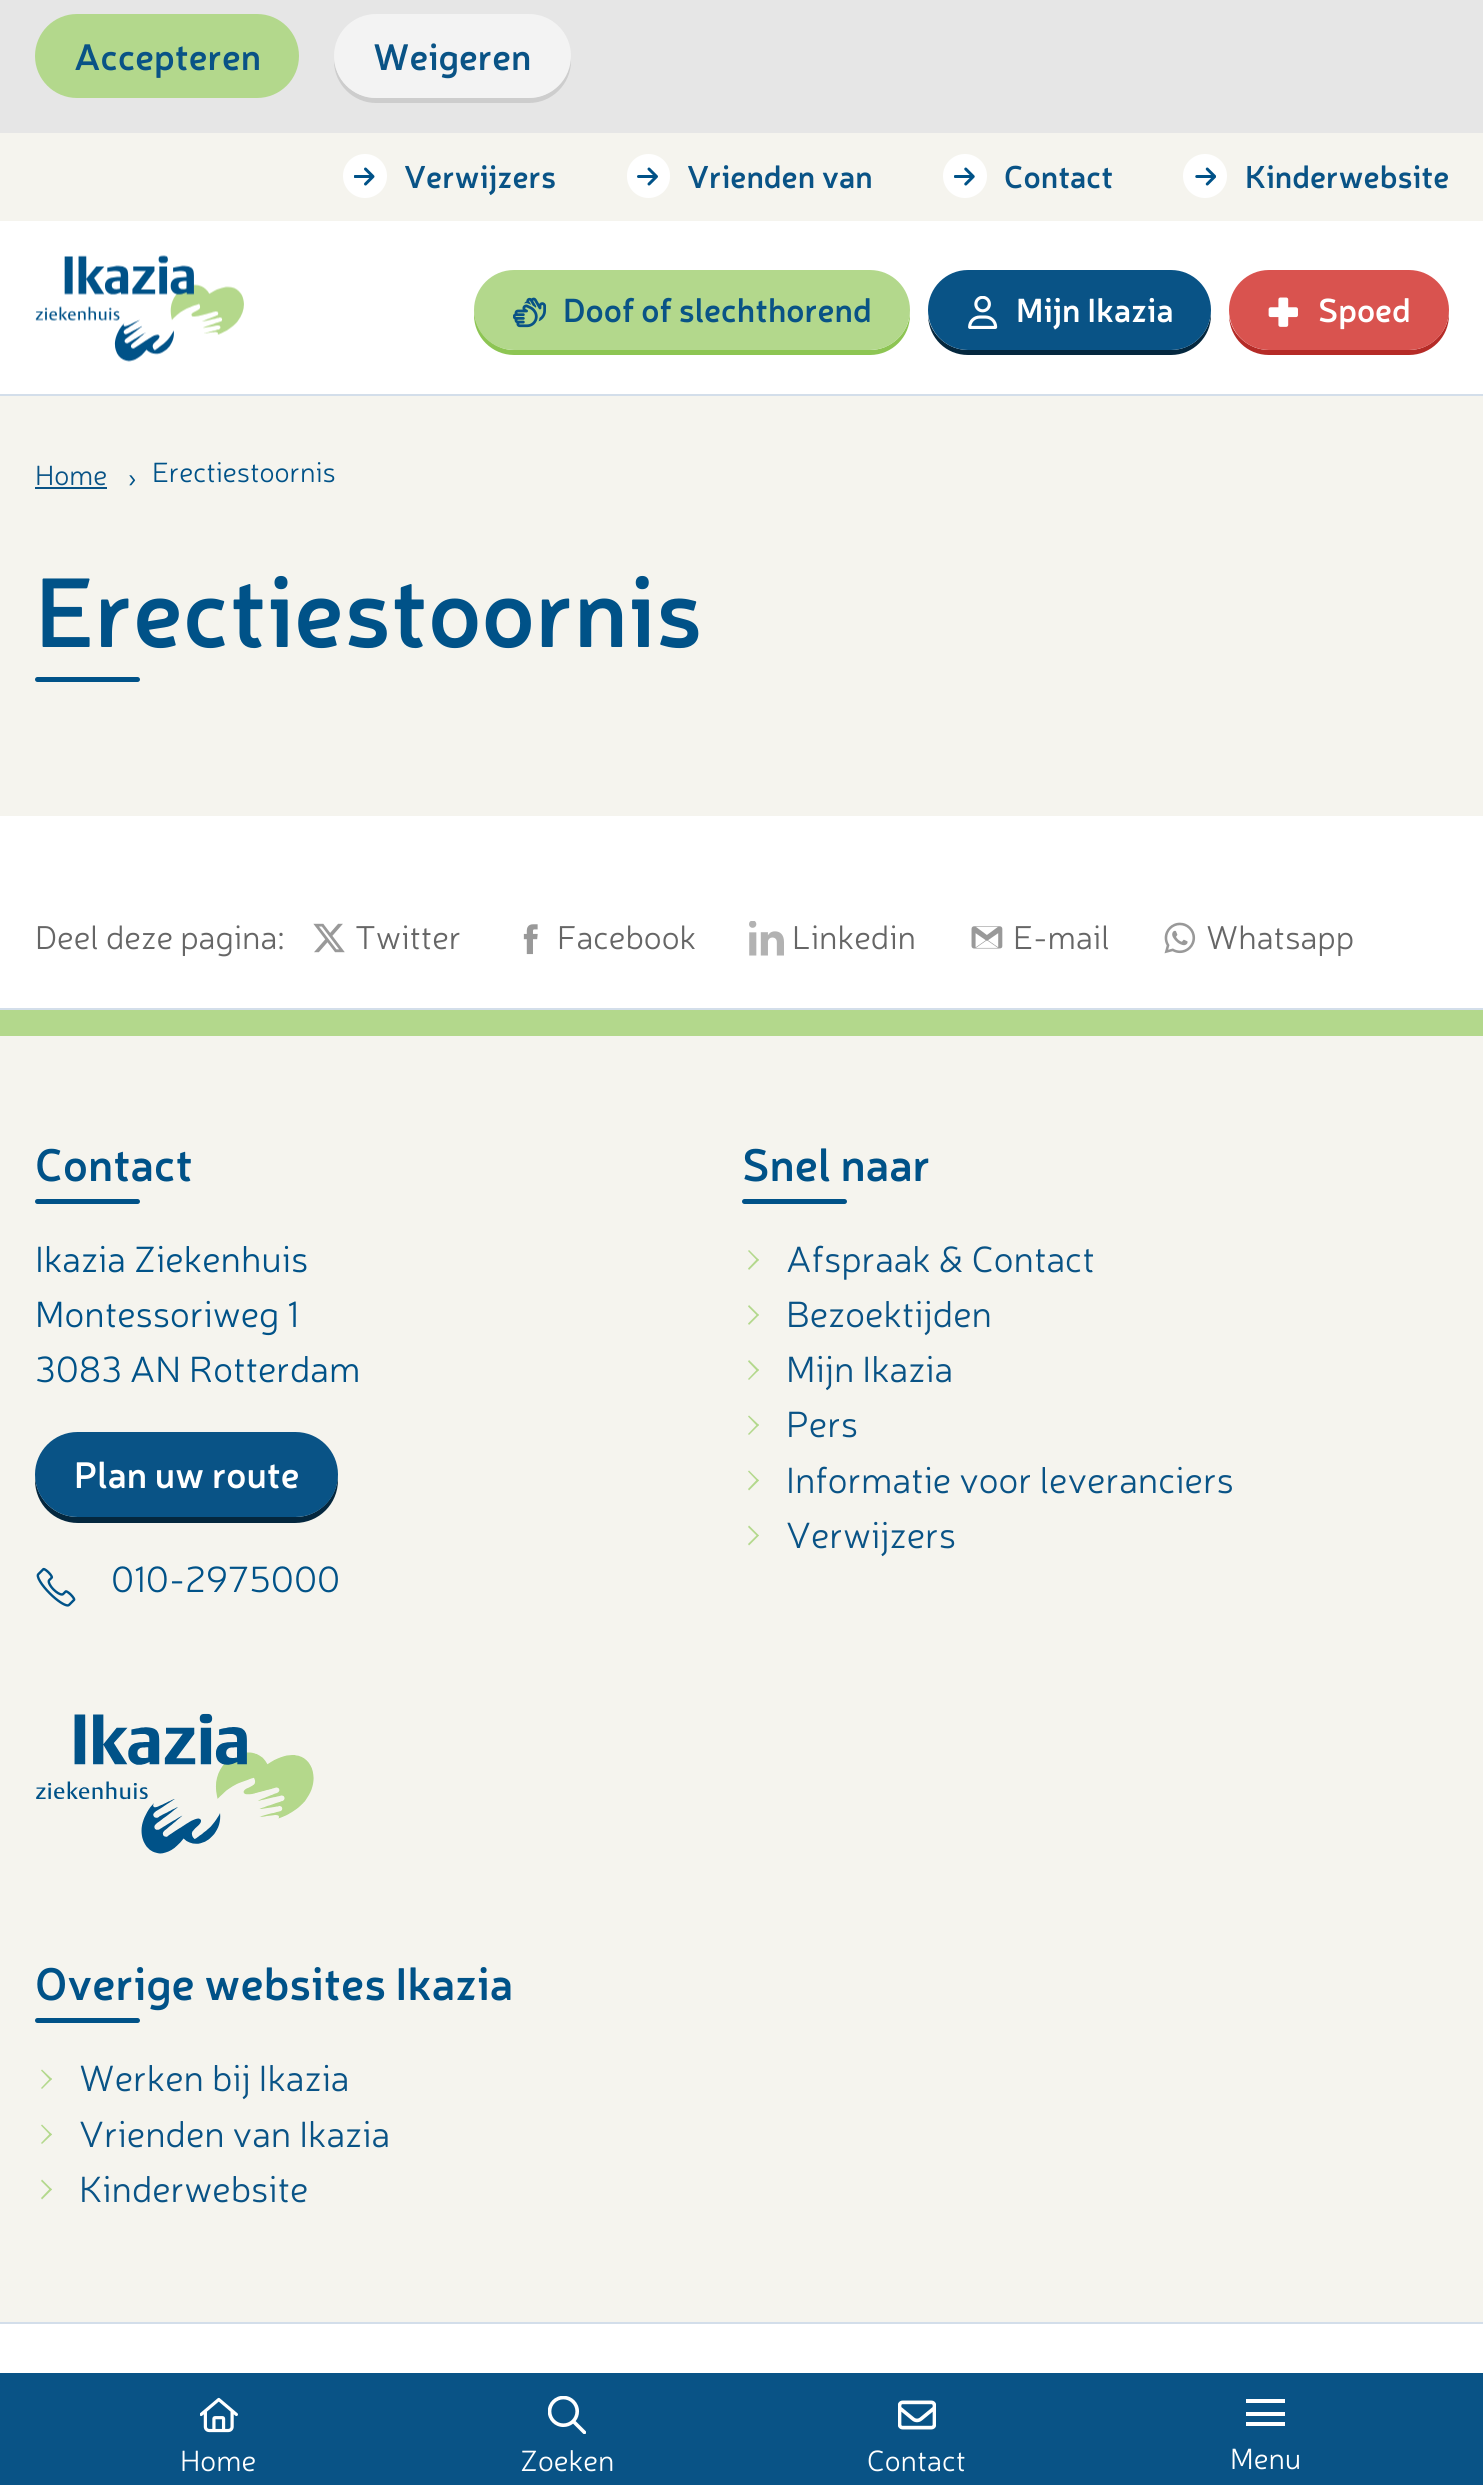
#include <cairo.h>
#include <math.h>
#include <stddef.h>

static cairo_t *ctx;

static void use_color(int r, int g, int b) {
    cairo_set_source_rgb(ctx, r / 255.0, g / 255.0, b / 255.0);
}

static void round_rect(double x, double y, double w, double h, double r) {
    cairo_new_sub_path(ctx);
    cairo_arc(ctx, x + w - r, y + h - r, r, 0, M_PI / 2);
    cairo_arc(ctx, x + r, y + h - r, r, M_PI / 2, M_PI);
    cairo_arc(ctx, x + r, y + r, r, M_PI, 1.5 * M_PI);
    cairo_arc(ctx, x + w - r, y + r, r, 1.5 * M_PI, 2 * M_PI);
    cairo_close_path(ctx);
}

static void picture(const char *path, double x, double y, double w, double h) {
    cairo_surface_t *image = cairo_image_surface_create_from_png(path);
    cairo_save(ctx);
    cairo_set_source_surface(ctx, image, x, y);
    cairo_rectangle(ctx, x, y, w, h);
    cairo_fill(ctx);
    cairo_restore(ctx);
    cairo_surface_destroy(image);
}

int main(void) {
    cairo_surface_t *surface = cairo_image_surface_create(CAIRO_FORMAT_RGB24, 1483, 2485);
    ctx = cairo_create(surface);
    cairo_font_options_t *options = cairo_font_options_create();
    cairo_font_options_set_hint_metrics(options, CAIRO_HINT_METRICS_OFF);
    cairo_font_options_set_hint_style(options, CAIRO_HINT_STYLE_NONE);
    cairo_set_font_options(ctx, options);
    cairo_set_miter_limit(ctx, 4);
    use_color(255, 255, 255);
    cairo_paint(ctx);
    use_color(230, 230, 230);
    cairo_rectangle(ctx, 0, 0, 1483, 133);
    cairo_fill(ctx);
    use_color(179, 216, 140);
    round_rect(37, 16, 260, 80, 40);
    cairo_fill_preserve(ctx);
    cairo_set_line_width(ctx, 4);
    cairo_stroke(ctx);
    cairo_select_font_face(ctx, "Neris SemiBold", CAIRO_FONT_SLANT_NORMAL, CAIRO_FONT_WEIGHT_NORMAL);
    cairo_set_font_size(ctx, 36.75);
    use_color(9, 83, 134);
    cairo_move_to(ctx, 74, 70);
    cairo_show_text(ctx, "Accepteren");
    use_color(205, 205, 205);
    cairo_new_path(ctx);
    cairo_move_to(ctx, 334, 56);
    cairo_line_to(ctx, 334, 61);
    cairo_curve_to(ctx, 334, 84, 353, 103, 376, 103);
    cairo_line_to(ctx, 529, 103);
    cairo_curve_to(ctx, 552, 103, 571, 84, 571, 61);
    cairo_line_to(ctx, 570, 54);
    cairo_line_to(ctx, 570, 56);
    cairo_curve_to(ctx, 570, 79, 552, 98, 528, 98);
    cairo_line_to(ctx, 376, 98);
    cairo_curve_to(ctx, 353, 98, 334, 79, 334, 56);
    cairo_close_path(ctx);
    cairo_fill(ctx);
    use_color(243, 243, 243);
    round_rect(336, 16, 233, 80, 40);
    cairo_fill_preserve(ctx);
    cairo_stroke(ctx);
    use_color(9, 83, 134);
    cairo_move_to(ctx, 373, 70);
    cairo_show_text(ctx, "Weigeren");
    use_color(211, 222, 234);
    cairo_rectangle(ctx, 0, 394, 1483, 2);
    cairo_fill(ctx);
    use_color(245, 244, 238);
    cairo_rectangle(ctx, 0, 133, 1483, 88);
    cairo_fill(ctx);
    use_color(255, 255, 255);
    cairo_arc(ctx, 365, 176, 22, 0, 2 * M_PI);
    cairo_fill(ctx);
    picture("img1.png", 354, 167, 21, 19);
    cairo_set_font_size(ctx, 31.5);
    use_color(9, 83, 134);
    cairo_move_to(ctx, 404, 188);
    cairo_show_text(ctx, "Verwijzers");
    use_color(255, 255, 255);
    round_rect(627, 154, 43, 44, 21.5);
    cairo_fill(ctx);
    picture("img2.png", 637, 167, 21, 19);
    use_color(9, 83, 134);
    cairo_move_to(ctx, 687, 188);
    cairo_show_text(ctx, "Vrienden van");
    use_color(255, 255, 255);
    cairo_new_path(ctx);
    cairo_arc(ctx, 965, 176, 22, 0, 2 * M_PI);
    cairo_fill(ctx);
    picture("img3.png", 954, 167, 21, 19);
    use_color(9, 83, 134);
    cairo_move_to(ctx, 1004, 188);
    cairo_show_text(ctx, "Contact");
    use_color(255, 255, 255);
    cairo_new_path(ctx);
    cairo_arc(ctx, 1205, 176, 22, 0, 2 * M_PI);
    cairo_fill(ctx);
    picture("img4.png", 1195, 167, 21, 19);
    use_color(9, 83, 134);
    cairo_move_to(ctx, 1245, 188);
    cairo_show_text(ctx, "Kinderwebsite");
    picture("img5.png", 35, 255, 209, 107);
    use_color(141, 197, 83);
    cairo_new_path(ctx);
    cairo_move_to(ctx, 474, 310);
    cairo_line_to(ctx, 474, 315);
    cairo_curve_to(ctx, 474, 337, 492, 355, 514, 355);
    cairo_line_to(ctx, 870, 355);
    cairo_curve_to(ctx, 892, 355, 910, 337, 910, 315);
    cairo_line_to(ctx, 910, 312);
    cairo_curve_to(ctx, 909, 333, 891, 350, 870, 350);
    cairo_line_to(ctx, 514, 350);
    cairo_curve_to(ctx, 493, 350, 475, 332, 474, 310);
    cairo_close_path(ctx);
    cairo_fill(ctx);
    use_color(179, 216, 140);
    round_rect(476, 272, 432, 76, 38);
    cairo_fill_preserve(ctx);
    cairo_stroke(ctx);
    picture("img6.png", 513, 297, 33, 31);
    cairo_set_font_size(ctx, 33.25);
    use_color(9, 83, 134);
    cairo_move_to(ctx, 563, 322);
    cairo_show_text(ctx, "Doof of slechthorend");
    use_color(4, 39, 62);
    cairo_new_path(ctx);
    cairo_move_to(ctx, 928, 316);
    cairo_curve_to(ctx, 929, 338, 946, 355, 968, 355);
    cairo_line_to(ctx, 1171, 355);
    cairo_curve_to(ctx, 1193, 355, 1211, 337, 1211, 315);
    cairo_line_to(ctx, 1211, 312);
    cairo_curve_to(ctx, 1210, 333, 1192, 350, 1171, 350);
    cairo_line_to(ctx, 968, 350);
    cairo_curve_to(ctx, 948, 350, 931, 335, 928, 316);
    cairo_close_path(ctx);
    cairo_fill(ctx);
    use_color(9, 83, 134);
    round_rect(930, 272, 279, 76, 38);
    cairo_fill_preserve(ctx);
    cairo_stroke(ctx);
    picture("img7.png", 968, 296, 30, 33);
    use_color(255, 255, 255);
    cairo_move_to(ctx, 1016, 322);
    cairo_show_text(ctx, "Mijn Ikazia");
    use_color(181, 43, 39);
    cairo_new_path(ctx);
    cairo_move_to(ctx, 1229, 316);
    cairo_curve_to(ctx, 1230, 338, 1247, 355, 1269, 355);
    cairo_line_to(ctx, 1409, 355);
    cairo_curve_to(ctx, 1431, 355, 1449, 337, 1449, 315);
    cairo_line_to(ctx, 1449, 312);
    cairo_curve_to(ctx, 1448, 333, 1430, 350, 1409, 350);
    cairo_line_to(ctx, 1269, 350);
    cairo_curve_to(ctx, 1249, 350, 1232, 335, 1229, 316);
    cairo_close_path(ctx);
    cairo_fill(ctx);
    use_color(217, 83, 79);
    round_rect(1231, 272, 216, 76, 38);
    cairo_fill_preserve(ctx);
    cairo_stroke(ctx);
    picture("img8.png", 1268, 297, 30, 30);
    use_color(255, 255, 255);
    cairo_move_to(ctx, 1318, 322);
    cairo_show_text(ctx, "Spoed");
    use_color(245, 244, 238);
    cairo_rectangle(ctx, 0, 396, 1483, 420);
    cairo_fill(ctx);
    cairo_select_font_face(ctx, "Neris Light", CAIRO_FONT_SLANT_NORMAL, CAIRO_FONT_WEIGHT_NORMAL);
    cairo_set_font_size(ctx, 28);
    use_color(9, 83, 134);
    cairo_move_to(ctx, 35, 485);
    cairo_show_text(ctx, "Home");
    cairo_rectangle(ctx, 35, 487, 72, 2);
    cairo_fill(ctx);
    use_color(0, 82, 136);
    cairo_move_to(ctx, 127, 487);
    cairo_show_text(ctx, "›");
    cairo_move_to(ctx, 152, 482);
    cairo_show_text(ctx, "Erectiestoornis");
    cairo_select_font_face(ctx, "Neris SemiBold", CAIRO_FONT_SLANT_NORMAL, CAIRO_FONT_WEIGHT_NORMAL);
    cairo_set_font_size(ctx, 98);
    cairo_move_to(ctx, 35, 647);
    cairo_show_text(ctx, "Erectiestoornis");
    round_rect(35, 677, 105, 5, 2.5);
    cairo_fill(ctx);
    cairo_select_font_face(ctx, "Neris Light", CAIRO_FONT_SLANT_NORMAL, CAIRO_FONT_WEIGHT_NORMAL);
    cairo_set_font_size(ctx, 33.25);
    use_color(102, 102, 102);
    cairo_move_to(ctx, 35, 949);
    cairo_show_text(ctx, "Deel deze pagina:");
    picture("img9.png", 313, 923, 32, 30);
    cairo_move_to(ctx, 355, 949);
    cairo_show_text(ctx, "Twitter");
    picture("img10.png", 523, 924, 15, 31);
    cairo_move_to(ctx, 557, 949);
    cairo_show_text(ctx, "Facebook");
    picture("img11.png", 749, 921, 35, 35);
    cairo_move_to(ctx, 792, 949);
    cairo_show_text(ctx, "Linkedin");
    picture("img12.png", 971, 926, 32, 23);
    cairo_move_to(ctx, 1013, 949);
    cairo_show_text(ctx, "E-mail");
    picture("img13.png", 1164, 922, 32, 32);
    cairo_move_to(ctx, 1206, 949);
    cairo_show_text(ctx, "Whatsapp");
    use_color(211, 222, 234);
    cairo_rectangle(ctx, 0, 1008, 1483, 2);
    cairo_fill(ctx);
    use_color(245, 244, 238);
    cairo_rectangle(ctx, 0, 1036, 1483, 1286);
    cairo_fill(ctx);
    use_color(179, 216, 140);
    cairo_rectangle(ctx, 0, 1010, 1483, 26);
    cairo_fill(ctx);
    cairo_select_font_face(ctx, "Neris SemiBold", CAIRO_FONT_SLANT_NORMAL, CAIRO_FONT_WEIGHT_NORMAL);
    cairo_set_font_size(ctx, 45.5);
    use_color(0, 82, 136);
    cairo_move_to(ctx, 35, 1181);
    cairo_show_text(ctx, "Contact");
    round_rect(35, 1199, 105, 5, 2.5);
    cairo_fill(ctx);
    cairo_select_font_face(ctx, "Neris Light", CAIRO_FONT_SLANT_NORMAL, CAIRO_FONT_WEIGHT_NORMAL);
    cairo_set_font_size(ctx, 36.75);
    cairo_move_to(ctx, 35, 1272);
    cairo_show_text(ctx, "Ikazia Ziekenhuis");
    cairo_move_to(ctx, 35, 1327);
    cairo_show_text(ctx, "Montessoriweg 1");
    cairo_move_to(ctx, 35, 1382);
    cairo_show_text(ctx, "3083 AN Rotterdam");
    use_color(4, 39, 62);
    cairo_new_path(ctx);
    cairo_move_to(ctx, 35, 1477);
    cairo_line_to(ctx, 35, 1480);
    cairo_curve_to(ctx, 35, 1504, 54, 1523, 78, 1523);
    cairo_line_to(ctx, 295, 1523);
    cairo_curve_to(ctx, 319, 1523, 338, 1504, 338, 1480);
    cairo_line_to(ctx, 338, 1475);
    cairo_curve_to(ctx, 337, 1499, 318, 1517, 295, 1517);
    cairo_line_to(ctx, 78, 1517);
    cairo_curve_to(ctx, 55, 1517, 37, 1500, 35, 1477);
    cairo_close_path(ctx);
    cairo_fill(ctx);
    use_color(9, 83, 134);
    round_rect(37, 1434, 299, 81, 40.5);
    cairo_fill_preserve(ctx);
    cairo_stroke(ctx);
    cairo_select_font_face(ctx, "Neris SemiBold", CAIRO_FONT_SLANT_NORMAL, CAIRO_FONT_WEIGHT_NORMAL);
    use_color(255, 255, 255);
    cairo_move_to(ctx, 74, 1488);
    cairo_show_text(ctx, "Plan uw route");
    picture("img14.png", 36, 1567, 40, 40);
    cairo_select_font_face(ctx, "Neris Light", CAIRO_FONT_SLANT_NORMAL, CAIRO_FONT_WEIGHT_NORMAL);
    use_color(0, 82, 136);
    cairo_move_to(ctx, 111, 1592);
    cairo_show_text(ctx, "010-2975000");
    picture("img15.png", 36, 1713, 278, 141);
    cairo_select_font_face(ctx, "Neris SemiBold", CAIRO_FONT_SLANT_NORMAL, CAIRO_FONT_WEIGHT_NORMAL);
    cairo_set_font_size(ctx, 45.5);
    cairo_move_to(ctx, 742, 1181);
    cairo_show_text(ctx, "Snel naar");
    round_rect(742, 1199, 105, 5, 2.5);
    cairo_fill(ctx);
    use_color(179, 216, 140);
    cairo_new_path(ctx);
    cairo_move_to(ctx, 748, 1251);
    cairo_line_to(ctx, 749, 1250);
    cairo_line_to(ctx, 759, 1260);
    cairo_line_to(ctx, 757.5, 1261);
    cairo_close_path(ctx);
    cairo_fill(ctx);
    cairo_new_path(ctx);
    cairo_move_to(ctx, 748, 1268.5);
    cairo_line_to(ctx, 757.5, 1258.5);
    cairo_line_to(ctx, 759, 1260);
    cairo_line_to(ctx, 749, 1270);
    cairo_close_path(ctx);
    cairo_fill(ctx);
    cairo_select_font_face(ctx, "Neris Light", CAIRO_FONT_SLANT_NORMAL, CAIRO_FONT_WEIGHT_NORMAL);
    cairo_set_font_size(ctx, 36.75);
    use_color(9, 83, 134);
    cairo_move_to(ctx, 786, 1272);
    cairo_show_text(ctx, "Afspraak & Contact");
    use_color(179, 216, 140);
    cairo_new_path(ctx);
    cairo_move_to(ctx, 748, 1306.5);
    cairo_line_to(ctx, 749, 1305);
    cairo_line_to(ctx, 759, 1315);
    cairo_line_to(ctx, 757.5, 1316);
    cairo_close_path(ctx);
    cairo_fill(ctx);
    cairo_new_path(ctx);
    cairo_move_to(ctx, 748, 1323.5);
    cairo_line_to(ctx, 757.5, 1314);
    cairo_line_to(ctx, 759, 1315);
    cairo_line_to(ctx, 749, 1325);
    cairo_close_path(ctx);
    cairo_fill(ctx);
    use_color(9, 83, 134);
    cairo_move_to(ctx, 786, 1327);
    cairo_show_text(ctx, "Bezoektijden");
    use_color(179, 216, 140);
    cairo_new_path(ctx);
    cairo_move_to(ctx, 748, 1361.5);
    cairo_line_to(ctx, 749, 1360);
    cairo_line_to(ctx, 759, 1370);
    cairo_line_to(ctx, 757.5, 1371.5);
    cairo_close_path(ctx);
    cairo_fill(ctx);
    cairo_new_path(ctx);
    cairo_move_to(ctx, 748, 1379);
    cairo_line_to(ctx, 757.5, 1369);
    cairo_line_to(ctx, 759, 1370);
    cairo_line_to(ctx, 749, 1380);
    cairo_close_path(ctx);
    cairo_fill(ctx);
    use_color(9, 83, 134);
    cairo_move_to(ctx, 786, 1382);
    cairo_show_text(ctx, "Mijn Ikazia");
    use_color(179, 216, 140);
    cairo_new_path(ctx);
    cairo_move_to(ctx, 748, 1416.5);
    cairo_line_to(ctx, 749, 1415.5);
    cairo_line_to(ctx, 759, 1425);
    cairo_line_to(ctx, 757.5, 1426.5);
    cairo_close_path(ctx);
    cairo_fill(ctx);
    cairo_new_path(ctx);
    cairo_move_to(ctx, 748, 1434);
    cairo_line_to(ctx, 757.5, 1424);
    cairo_line_to(ctx, 759, 1425);
    cairo_line_to(ctx, 749, 1435);
    cairo_close_path(ctx);
    cairo_fill(ctx);
    use_color(9, 83, 134);
    cairo_move_to(ctx, 786, 1437);
    cairo_show_text(ctx, "Pers");
    use_color(179, 216, 140);
    cairo_new_path(ctx);
    cairo_move_to(ctx, 748, 1471.5);
    cairo_line_to(ctx, 749, 1470.5);
    cairo_line_to(ctx, 759, 1480.5);
    cairo_line_to(ctx, 757.5, 1481.5);
    cairo_close_path(ctx);
    cairo_fill(ctx);
    cairo_new_path(ctx);
    cairo_move_to(ctx, 748, 1489);
    cairo_line_to(ctx, 757.5, 1479);
    cairo_line_to(ctx, 759, 1480.5);
    cairo_line_to(ctx, 749, 1490.5);
    cairo_close_path(ctx);
    cairo_fill(ctx);
    use_color(9, 83, 134);
    cairo_move_to(ctx, 786, 1493);
    cairo_show_text(ctx, "Informatie voor leveranciers");
    use_color(179, 216, 140);
    cairo_new_path(ctx);
    cairo_move_to(ctx, 748, 1527);
    cairo_line_to(ctx, 749, 1525.5);
    cairo_line_to(ctx, 759, 1535.5);
    cairo_line_to(ctx, 757.5, 1536.5);
    cairo_close_path(ctx);
    cairo_fill(ctx);
    cairo_new_path(ctx);
    cairo_move_to(ctx, 748, 1544);
    cairo_line_to(ctx, 757.5, 1534.5);
    cairo_line_to(ctx, 759, 1535.5);
    cairo_line_to(ctx, 749, 1545.5);
    cairo_close_path(ctx);
    cairo_fill(ctx);
    use_color(9, 83, 134);
    cairo_move_to(ctx, 786, 1548);
    cairo_show_text(ctx, "Verwijzers");
    cairo_select_font_face(ctx, "Neris SemiBold", CAIRO_FONT_SLANT_NORMAL, CAIRO_FONT_WEIGHT_NORMAL);
    cairo_set_font_size(ctx, 45.5);
    use_color(0, 82, 136);
    cairo_move_to(ctx, 35, 2000);
    cairo_show_text(ctx, "Overige websites Ikazia");
    round_rect(35, 2018, 105, 5, 2.5);
    cairo_fill(ctx);
    use_color(179, 216, 140);
    cairo_new_path(ctx);
    cairo_move_to(ctx, 41, 2070.5);
    cairo_line_to(ctx, 42, 2069.5);
    cairo_line_to(ctx, 52, 2079);
    cairo_line_to(ctx, 50.5, 2080.5);
    cairo_close_path(ctx);
    cairo_fill(ctx);
    cairo_new_path(ctx);
    cairo_move_to(ctx, 41, 2088);
    cairo_line_to(ctx, 50.5, 2078);
    cairo_line_to(ctx, 52, 2079);
    cairo_line_to(ctx, 42, 2089);
    cairo_close_path(ctx);
    cairo_fill(ctx);
    cairo_select_font_face(ctx, "Neris Light", CAIRO_FONT_SLANT_NORMAL, CAIRO_FONT_WEIGHT_NORMAL);
    cairo_set_font_size(ctx, 36.75);
    use_color(9, 83, 134);
    cairo_move_to(ctx, 79, 2091);
    cairo_show_text(ctx, "Werken bij Ikazia");
    use_color(179, 216, 140);
    cairo_new_path(ctx);
    cairo_move_to(ctx, 41, 2125.5);
    cairo_line_to(ctx, 42, 2124.5);
    cairo_line_to(ctx, 52, 2134.5);
    cairo_line_to(ctx, 50.5, 2135.5);
    cairo_close_path(ctx);
    cairo_fill(ctx);
    cairo_new_path(ctx);
    cairo_move_to(ctx, 41, 2143);
    cairo_line_to(ctx, 50.5, 2133);
    cairo_line_to(ctx, 52, 2134.5);
    cairo_line_to(ctx, 42, 2144);
    cairo_close_path(ctx);
    cairo_fill(ctx);
    use_color(9, 83, 134);
    cairo_move_to(ctx, 79, 2147);
    cairo_show_text(ctx, "Vrienden van Ikazia");
    use_color(179, 216, 140);
    cairo_new_path(ctx);
    cairo_move_to(ctx, 41, 2181);
    cairo_line_to(ctx, 42, 2179.5);
    cairo_line_to(ctx, 52, 2189.5);
    cairo_line_to(ctx, 50.5, 2190.5);
    cairo_close_path(ctx);
    cairo_fill(ctx);
    cairo_new_path(ctx);
    cairo_move_to(ctx, 41, 2198);
    cairo_line_to(ctx, 50.5, 2188);
    cairo_line_to(ctx, 52, 2189.5);
    cairo_line_to(ctx, 42, 2199.5);
    cairo_close_path(ctx);
    cairo_fill(ctx);
    use_color(9, 83, 134);
    cairo_move_to(ctx, 79, 2202);
    cairo_show_text(ctx, "Kinderwebsite");
    use_color(211, 222, 234);
    cairo_rectangle(ctx, 0, 2322, 1483, 2);
    cairo_fill(ctx);
    use_color(9, 83, 134);
    cairo_rectangle(ctx, 0, 2373, 1483, 112);
    cairo_fill(ctx);
    picture("img16.png", 200, 2397, 38, 36);
    cairo_set_font_size(ctx, 29.5);
    use_color(255, 255, 255);
    cairo_move_to(ctx, 180, 2471);
    cairo_show_text(ctx, "Home");
    picture("img17.png", 548, 2396, 38, 38);
    cairo_move_to(ctx, 520, 2471);
    cairo_show_text(ctx, "Zoeken");
    picture("img18.png", 898, 2400, 38, 30);
    cairo_move_to(ctx, 867, 2471);
    cairo_show_text(ctx, "Contact");
    cairo_rectangle(ctx, 1246, 2399, 39, 4);
    cairo_fill(ctx);
    cairo_rectangle(ctx, 1246, 2412, 39, 4);
    cairo_fill(ctx);
    cairo_rectangle(ctx, 1246, 2422, 39, 4);
    cairo_fill(ctx);
    cairo_move_to(ctx, 1230, 2469);
    cairo_show_text(ctx, "Menu");
    cairo_surface_write_to_png(surface, "result.png");
    cairo_font_options_destroy(options);
    cairo_destroy(ctx);
    cairo_surface_destroy(surface);
    return 0;
}
